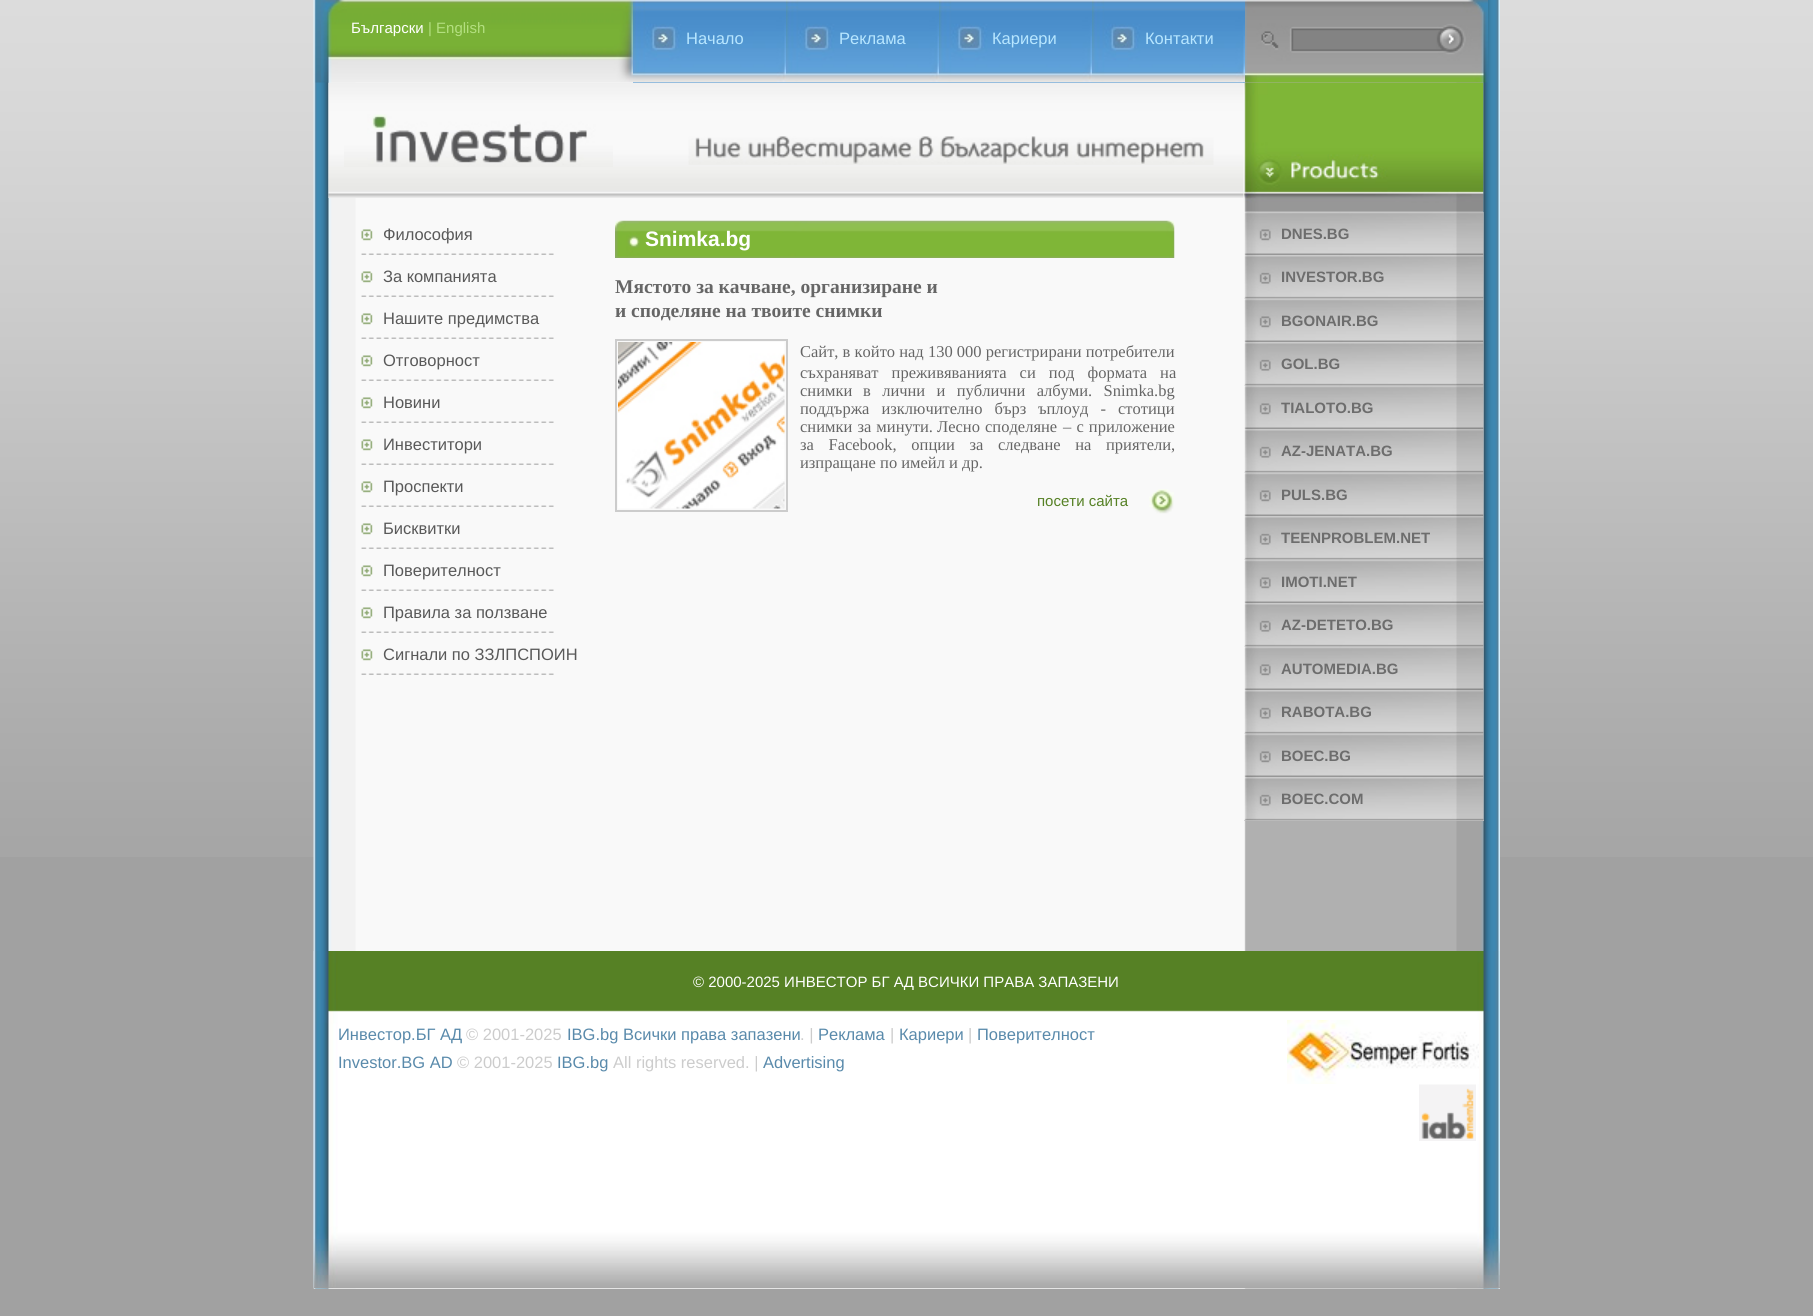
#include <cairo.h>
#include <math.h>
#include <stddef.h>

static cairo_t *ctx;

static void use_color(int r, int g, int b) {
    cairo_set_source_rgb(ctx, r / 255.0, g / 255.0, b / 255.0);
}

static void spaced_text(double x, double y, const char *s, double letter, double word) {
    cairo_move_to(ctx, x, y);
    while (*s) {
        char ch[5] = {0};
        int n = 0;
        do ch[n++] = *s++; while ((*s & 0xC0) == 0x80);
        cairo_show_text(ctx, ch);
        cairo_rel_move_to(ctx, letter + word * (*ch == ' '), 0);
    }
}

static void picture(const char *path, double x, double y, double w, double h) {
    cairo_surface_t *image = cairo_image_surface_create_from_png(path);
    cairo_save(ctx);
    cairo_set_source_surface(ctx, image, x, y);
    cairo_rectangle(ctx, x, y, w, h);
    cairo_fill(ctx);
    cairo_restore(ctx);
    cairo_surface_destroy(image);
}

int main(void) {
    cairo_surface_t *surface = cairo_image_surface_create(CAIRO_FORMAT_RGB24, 1813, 1316);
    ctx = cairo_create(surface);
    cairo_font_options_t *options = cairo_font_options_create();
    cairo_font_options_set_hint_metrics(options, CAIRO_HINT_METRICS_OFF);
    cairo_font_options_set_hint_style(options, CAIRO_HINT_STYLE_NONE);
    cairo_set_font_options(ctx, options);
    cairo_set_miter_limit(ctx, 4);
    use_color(161, 161, 161);
    cairo_paint(ctx);
    picture("img1.png", 0, 0, 1813, 857);
    use_color(249, 249, 249);
    cairo_rectangle(ctx, 314, 1288, 1186, 1);
    cairo_fill(ctx);
    picture("img2.png", 313, 0, 1187, 1289);
    picture("img3.png", 313, 0, 320, 83);
    cairo_select_font_face(ctx, "Liberation Sans", CAIRO_FONT_SLANT_NORMAL, CAIRO_FONT_WEIGHT_NORMAL);
    cairo_set_font_size(ctx, 15);
    use_color(255, 255, 255);
    cairo_move_to(ctx, 351, 33);
    cairo_show_text(ctx, "Български");
    use_color(179, 223, 128);
    cairo_move_to(ctx, 428, 33);
    cairo_show_text(ctx, "| English");
    picture("img4.png", 1245, 0, 243, 83);
    use_color(83, 152, 211);
    cairo_rectangle(ctx, 633, 82, 612, 1);
    cairo_fill(ctx);
    picture("img5.png", 633, 0, 153, 83);
    cairo_set_font_size(ctx, 16.5);
    use_color(183, 230, 255);
    cairo_move_to(ctx, 686, 44);
    cairo_show_text(ctx, "Начало");
    picture("img5.png", 786, 0, 153, 83);
    cairo_move_to(ctx, 839, 44);
    cairo_show_text(ctx, "Реклама");
    picture("img5.png", 939, 0, 153, 83);
    cairo_move_to(ctx, 992, 44);
    cairo_show_text(ctx, "Кариери");
    picture("img6.png", 1092, 0, 153, 83);
    cairo_move_to(ctx, 1145, 44);
    cairo_show_text(ctx, "Контакти");
    picture("img7.png", 328, 82, 916, 116);
    picture("img8.png", 344, 114, 269, 53);
    picture("img9.png", 688, 136, 526, 29);
    picture("img10.png", 361, 229, 193, 26);
    use_color(89, 89, 89);
    cairo_move_to(ctx, 383, 240);
    cairo_show_text(ctx, "Философия");
    picture("img10.png", 361, 271, 193, 26);
    cairo_move_to(ctx, 383, 282);
    cairo_show_text(ctx, "За компанията");
    picture("img10.png", 361, 313, 193, 26);
    cairo_move_to(ctx, 383, 324);
    cairo_show_text(ctx, "Нашите предимства");
    picture("img10.png", 361, 355, 193, 26);
    cairo_move_to(ctx, 383, 366);
    cairo_show_text(ctx, "Отговорност");
    picture("img10.png", 361, 397, 193, 26);
    cairo_move_to(ctx, 383, 408);
    cairo_show_text(ctx, "Новини");
    picture("img10.png", 361, 439, 193, 26);
    cairo_move_to(ctx, 383, 450);
    cairo_show_text(ctx, "Инвеститори");
    picture("img10.png", 361, 481, 193, 26);
    cairo_move_to(ctx, 383, 492);
    cairo_show_text(ctx, "Проспекти");
    picture("img10.png", 361, 523, 193, 26);
    cairo_move_to(ctx, 383, 534);
    cairo_show_text(ctx, "Бисквитки");
    picture("img10.png", 361, 565, 193, 26);
    cairo_move_to(ctx, 383, 576);
    cairo_show_text(ctx, "Поверителност");
    picture("img10.png", 361, 607, 193, 26);
    cairo_move_to(ctx, 383, 618);
    cairo_show_text(ctx, "Правила за ползване");
    picture("img10.png", 361, 649, 193, 26);
    cairo_move_to(ctx, 383, 660);
    cairo_show_text(ctx, "Сигнали по ЗЗЛПСПОИН");
    picture("img11.png", 615, 220, 560, 38);
    cairo_select_font_face(ctx, "Liberation Sans", CAIRO_FONT_SLANT_NORMAL, CAIRO_FONT_WEIGHT_BOLD);
    cairo_set_font_size(ctx, 21);
    use_color(255, 255, 255);
    cairo_move_to(ctx, 645, 246);
    cairo_show_text(ctx, "Snimka.bg");
    cairo_select_font_face(ctx, "Liberation Serif", CAIRO_FONT_SLANT_NORMAL, CAIRO_FONT_WEIGHT_BOLD);
    cairo_set_font_size(ctx, 19.5);
    use_color(102, 102, 102);
    cairo_move_to(ctx, 615, 293);
    cairo_show_text(ctx, "Мястото за качване, организиране и");
    cairo_move_to(ctx, 615, 317);
    cairo_show_text(ctx, "и споделяне на твоите снимки");
    cairo_rectangle(ctx, 616, 340, 171, 171);
    use_color(204, 204, 204);
    cairo_stroke(ctx);
    picture("img12.png", 618, 342, 167, 167);
    cairo_select_font_face(ctx, "Liberation Serif", CAIRO_FONT_SLANT_NORMAL, CAIRO_FONT_WEIGHT_NORMAL);
    cairo_set_font_size(ctx, 16.5);
    use_color(102, 102, 102);
    cairo_move_to(ctx, 800, 357);
    cairo_show_text(ctx, "Сайт, в който над 130 000 регистрирани потребители");
    spaced_text(800, 378, "съхраняват преживяванията си под формата на", 0, 9);
    cairo_move_to(ctx, 800, 396);
    cairo_show_text(ctx, "снимки");
    spaced_text(863, 396, "в лични и публични албуми. Snimka.bg", 0, 7.25);
    spaced_text(800, 414, "поддържа изключително бърз", 0, 8);
    spaced_text(1038, 414, "ъплоуд -", 0, 8);
    cairo_move_to(ctx, 1118, 414);
    cairo_show_text(ctx, "стотици");
    spaced_text(800, 432, "снимки за минути.", 0, 1);
    spaced_text(937, 432, "Лесно споделяне", 0, 1);
    spaced_text(1063, 432, "– с приложение", 0, 1);
    spaced_text(800, 450, "за Facebook, опции за следване на приятели,", 0, 10.5);
    cairo_move_to(ctx, 800, 468);
    cairo_show_text(ctx, "изпращане по имейл и др.");
    picture("img13.png", 1149, 489, 25, 25);
    cairo_select_font_face(ctx, "Liberation Sans", CAIRO_FONT_SLANT_NORMAL, CAIRO_FONT_WEIGHT_NORMAL);
    cairo_set_font_size(ctx, 15);
    use_color(86, 129, 37);
    cairo_move_to(ctx, 1037, 506);
    cairo_show_text(ctx, "посети сайта");
    picture("img14.png", 1243, 82, 241, 130);
    use_color(198, 198, 198);
    cairo_rectangle(ctx, 1244, 212, 240, 609);
    cairo_fill(ctx);
    picture("img15.png", 1244, 211, 240, 44);
    cairo_select_font_face(ctx, "Liberation Sans", CAIRO_FONT_SLANT_NORMAL, CAIRO_FONT_WEIGHT_BOLD);
    use_color(109, 109, 109);
    cairo_move_to(ctx, 1281, 239);
    cairo_show_text(ctx, "DNES.BG");
    picture("img16.png", 1244, 255, 240, 44);
    cairo_move_to(ctx, 1281, 282);
    cairo_show_text(ctx, "INVESTOR.BG");
    picture("img17.png", 1244, 298, 240, 44);
    cairo_move_to(ctx, 1281, 326);
    cairo_show_text(ctx, "BGONAIR.BG");
    picture("img16.png", 1244, 342, 240, 44);
    cairo_move_to(ctx, 1281, 369);
    cairo_show_text(ctx, "GOL.BG");
    picture("img17.png", 1244, 385, 240, 44);
    cairo_move_to(ctx, 1281, 413);
    cairo_show_text(ctx, "TIALOTO.BG");
    picture("img16.png", 1244, 429, 240, 44);
    cairo_move_to(ctx, 1281, 456);
    cairo_show_text(ctx, "AZ-JENATA.BG");
    picture("img17.png", 1244, 472, 240, 44);
    cairo_move_to(ctx, 1281, 500);
    cairo_show_text(ctx, "PULS.BG");
    picture("img16.png", 1244, 516, 240, 44);
    cairo_move_to(ctx, 1281, 543);
    cairo_show_text(ctx, "TEENPROBLEM.NET");
    picture("img17.png", 1244, 559, 240, 44);
    cairo_move_to(ctx, 1281, 587);
    cairo_show_text(ctx, "IMOTI.NET");
    picture("img16.png", 1244, 603, 240, 44);
    cairo_move_to(ctx, 1281, 630);
    cairo_show_text(ctx, "AZ-DETETO.BG");
    picture("img17.png", 1244, 646, 240, 44);
    cairo_move_to(ctx, 1281, 674);
    cairo_show_text(ctx, "AUTOMEDIA.BG");
    picture("img16.png", 1244, 690, 240, 44);
    cairo_move_to(ctx, 1281, 717);
    cairo_show_text(ctx, "RABOTA.BG");
    picture("img17.png", 1244, 733, 240, 44);
    cairo_move_to(ctx, 1281, 761);
    cairo_show_text(ctx, "BOEC.BG");
    picture("img18.png", 1244, 777, 240, 44);
    cairo_move_to(ctx, 1281, 804);
    cairo_show_text(ctx, "BOEC.COM");
    picture("img19.png", 313, 951, 1187, 338);
    cairo_select_font_face(ctx, "Liberation Sans", CAIRO_FONT_SLANT_NORMAL, CAIRO_FONT_WEIGHT_NORMAL);
    use_color(255, 255, 255);
    cairo_move_to(ctx, 693, 987);
    cairo_show_text(ctx, "© 2000-2025 ИНВЕСТОР БГ АД ВСИЧКИ ПРАВА ЗАПАЗЕНИ");
    cairo_set_font_size(ctx, 16.5);
    use_color(89, 138, 171);
    cairo_move_to(ctx, 338, 1040);
    cairo_show_text(ctx, "Инвестор.БГ АД");
    use_color(204, 204, 204);
    cairo_move_to(ctx, 466, 1040);
    cairo_show_text(ctx, "© 2001-2025");
    use_color(89, 138, 171);
    cairo_move_to(ctx, 567, 1040);
    cairo_show_text(ctx, "IBG.bg Всички права запазени");
    use_color(204, 204, 204);
    cairo_move_to(ctx, 800, 1040);
    cairo_show_text(ctx, ". |");
    use_color(89, 138, 171);
    cairo_move_to(ctx, 818, 1040);
    cairo_show_text(ctx, "Реклама");
    use_color(204, 204, 204);
    cairo_move_to(ctx, 890, 1040);
    cairo_show_text(ctx, "|");
    use_color(89, 138, 171);
    cairo_move_to(ctx, 899, 1040);
    cairo_show_text(ctx, "Кариери");
    use_color(204, 204, 204);
    cairo_move_to(ctx, 968, 1040);
    cairo_show_text(ctx, "|");
    use_color(89, 138, 171);
    cairo_move_to(ctx, 977, 1040);
    cairo_show_text(ctx, "Поверителност");
    picture("img20.png", 1287, 1020, 192, 64);
    cairo_move_to(ctx, 338, 1068);
    cairo_show_text(ctx, "Investor.BG AD");
    use_color(204, 204, 204);
    cairo_move_to(ctx, 457, 1068);
    cairo_show_text(ctx, "© 2001-2025");
    use_color(89, 138, 171);
    cairo_move_to(ctx, 557, 1068);
    cairo_show_text(ctx, "IBG.bg");
    use_color(204, 204, 204);
    cairo_move_to(ctx, 613, 1068);
    cairo_show_text(ctx, "All rights reserved. |");
    use_color(89, 138, 171);
    cairo_move_to(ctx, 763, 1068);
    cairo_show_text(ctx, "Advertising");
    picture("img21.png", 1419, 1084, 57, 57);
    cairo_surface_write_to_png(surface, "result.png");
    cairo_font_options_destroy(options);
    cairo_destroy(ctx);
    cairo_surface_destroy(surface);
    return 0;
}
